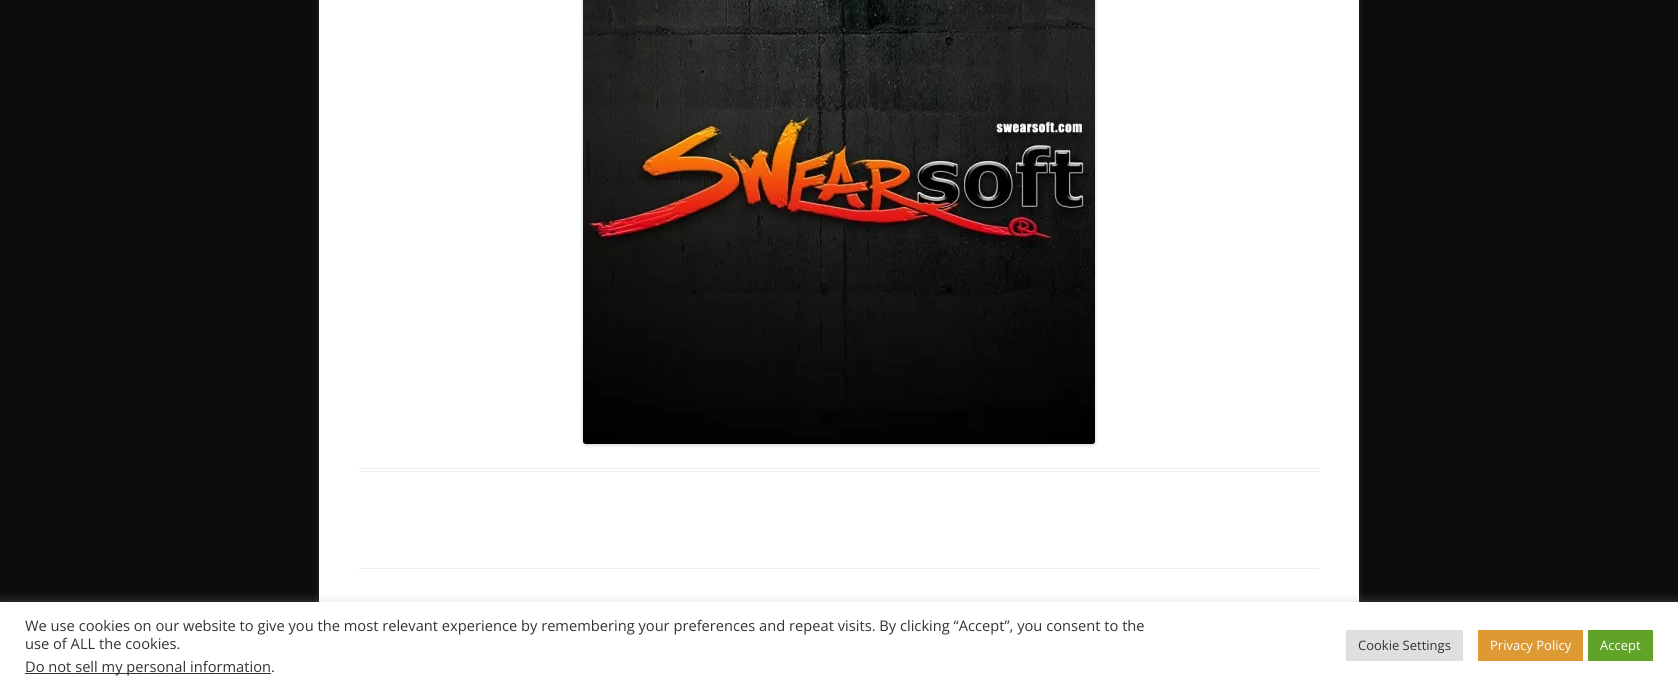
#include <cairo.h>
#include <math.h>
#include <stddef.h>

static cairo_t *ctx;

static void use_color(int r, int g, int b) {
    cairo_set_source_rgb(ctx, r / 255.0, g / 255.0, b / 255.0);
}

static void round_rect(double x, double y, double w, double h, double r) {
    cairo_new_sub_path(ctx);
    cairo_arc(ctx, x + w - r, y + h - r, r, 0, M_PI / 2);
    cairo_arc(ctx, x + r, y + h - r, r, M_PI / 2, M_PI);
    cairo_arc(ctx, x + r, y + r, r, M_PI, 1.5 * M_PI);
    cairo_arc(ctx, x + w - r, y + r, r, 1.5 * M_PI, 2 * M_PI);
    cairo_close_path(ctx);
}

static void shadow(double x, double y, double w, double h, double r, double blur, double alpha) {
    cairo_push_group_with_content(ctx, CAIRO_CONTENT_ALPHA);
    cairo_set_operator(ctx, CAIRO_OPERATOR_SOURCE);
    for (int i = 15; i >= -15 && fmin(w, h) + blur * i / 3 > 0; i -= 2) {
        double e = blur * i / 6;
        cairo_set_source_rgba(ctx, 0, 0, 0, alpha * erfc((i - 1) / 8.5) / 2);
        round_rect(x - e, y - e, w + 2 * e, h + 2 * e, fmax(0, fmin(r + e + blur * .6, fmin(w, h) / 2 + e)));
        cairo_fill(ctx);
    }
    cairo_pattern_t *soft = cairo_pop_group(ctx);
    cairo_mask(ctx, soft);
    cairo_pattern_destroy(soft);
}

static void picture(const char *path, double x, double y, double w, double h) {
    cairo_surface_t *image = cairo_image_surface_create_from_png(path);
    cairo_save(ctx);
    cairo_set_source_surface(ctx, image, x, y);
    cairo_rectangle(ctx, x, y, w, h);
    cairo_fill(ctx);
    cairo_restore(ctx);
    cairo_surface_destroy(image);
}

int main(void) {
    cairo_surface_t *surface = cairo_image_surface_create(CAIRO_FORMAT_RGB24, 1678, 689);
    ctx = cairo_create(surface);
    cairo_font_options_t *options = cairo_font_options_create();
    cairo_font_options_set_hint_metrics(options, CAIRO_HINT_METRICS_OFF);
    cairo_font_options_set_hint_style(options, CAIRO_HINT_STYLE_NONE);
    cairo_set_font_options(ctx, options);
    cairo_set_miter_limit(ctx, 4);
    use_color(12, 12, 12);
    cairo_paint(ctx);
    use_color(100, 100, 100);
    shadow(319, -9, 1040, 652, 0, 3, 0.3);
    use_color(255, 255, 255);
    cairo_rectangle(ctx, 319, 0, 1040, 602);
    cairo_fill(ctx);
    use_color(237, 237, 237);
    cairo_rectangle(ctx, 359, 468, 960, 1);
    cairo_fill(ctx);
    cairo_rectangle(ctx, 359, 471, 960, 1);
    cairo_fill(ctx);
    use_color(0, 0, 0);
    shadow(583, -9, 512, 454, 3, 2, 0.2);
    picture("img1.png", 583, 0, 512, 444);
    use_color(237, 237, 237);
    cairo_rectangle(ctx, 359, 568, 960, 1);
    cairo_fill(ctx);
    use_color(172, 171, 171);
    shadow(0, 601, 1678, 87, 0, 5, 0.3);
    use_color(255, 255, 255);
    cairo_rectangle(ctx, 0, 602, 1678, 87);
    cairo_fill(ctx);
    cairo_select_font_face(ctx, "Open Sans", CAIRO_FONT_SLANT_NORMAL, CAIRO_FONT_WEIGHT_NORMAL);
    cairo_set_font_size(ctx, 14.67);
    use_color(51, 51, 51);
    cairo_move_to(ctx, 25, 631);
    cairo_show_text(ctx, "We use cookies on our website to give you the most relevant experience by remembering your preferences and repeat visits. By clicking “Accept”, you consent to the");
    cairo_move_to(ctx, 25, 649);
    cairo_show_text(ctx, "use of ALL the cookies.");
    cairo_rectangle(ctx, 25, 673, 246, 1);
    cairo_fill(ctx);
    cairo_move_to(ctx, 25, 672);
    cairo_show_text(ctx, "Do not sell my personal information.");
    use_color(222, 223, 224);
    cairo_rectangle(ctx, 1346, 630, 117, 31);
    cairo_fill(ctx);
    cairo_set_font_size(ctx, 13);
    use_color(51, 51, 51);
    cairo_move_to(ctx, 1358, 650);
    cairo_show_text(ctx, "Cookie Settings");
    use_color(221, 153, 51);
    cairo_rectangle(ctx, 1478, 630, 105, 31);
    cairo_fill(ctx);
    use_color(255, 255, 255);
    cairo_move_to(ctx, 1490, 650);
    cairo_show_text(ctx, "Privacy Policy");
    use_color(97, 162, 41);
    cairo_rectangle(ctx, 1588, 630, 65, 31);
    cairo_fill(ctx);
    use_color(255, 255, 255);
    cairo_move_to(ctx, 1600, 650);
    cairo_show_text(ctx, "Accept");
    cairo_surface_write_to_png(surface, "result.png");
    cairo_font_options_destroy(options);
    cairo_destroy(ctx);
    cairo_surface_destroy(surface);
    return 0;
}
